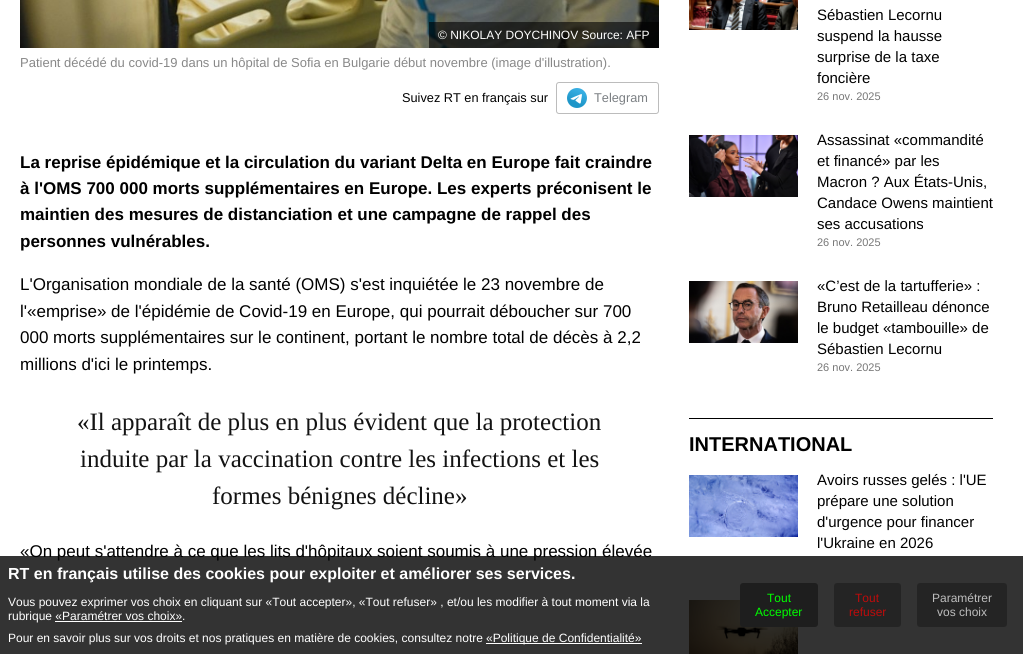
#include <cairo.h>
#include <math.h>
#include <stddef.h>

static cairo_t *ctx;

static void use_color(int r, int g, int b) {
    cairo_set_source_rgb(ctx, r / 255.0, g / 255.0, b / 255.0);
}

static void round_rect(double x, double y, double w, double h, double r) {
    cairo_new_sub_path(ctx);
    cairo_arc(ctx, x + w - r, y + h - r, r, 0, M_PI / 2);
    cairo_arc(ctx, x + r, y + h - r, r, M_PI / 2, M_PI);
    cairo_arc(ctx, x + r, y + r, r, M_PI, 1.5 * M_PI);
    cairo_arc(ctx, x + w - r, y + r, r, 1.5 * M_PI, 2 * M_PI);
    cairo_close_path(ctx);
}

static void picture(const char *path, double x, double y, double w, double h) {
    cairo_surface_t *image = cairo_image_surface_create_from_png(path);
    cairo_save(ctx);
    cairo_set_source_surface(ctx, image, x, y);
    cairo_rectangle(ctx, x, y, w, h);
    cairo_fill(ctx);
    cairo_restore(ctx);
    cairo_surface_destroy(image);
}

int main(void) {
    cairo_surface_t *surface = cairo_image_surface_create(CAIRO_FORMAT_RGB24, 1023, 654);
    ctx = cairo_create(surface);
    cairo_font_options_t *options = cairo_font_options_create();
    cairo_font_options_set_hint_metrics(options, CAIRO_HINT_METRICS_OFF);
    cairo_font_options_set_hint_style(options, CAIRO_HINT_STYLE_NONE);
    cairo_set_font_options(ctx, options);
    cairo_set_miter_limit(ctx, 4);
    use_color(255, 255, 255);
    cairo_paint(ctx);
    picture("img1.png", 20, 0, 639, 48);
    cairo_set_source_rgba(ctx, 0, 0, 0, 0.6);
    cairo_rectangle(ctx, 429, 22, 230, 26);
    cairo_fill(ctx);
    cairo_select_font_face(ctx, "Liberation Sans", CAIRO_FONT_SLANT_NORMAL, CAIRO_FONT_WEIGHT_NORMAL);
    cairo_set_font_size(ctx, 12);
    use_color(255, 255, 255);
    cairo_move_to(ctx, 438, 39);
    cairo_show_text(ctx, "© NIKOLAY DOYCHINOV Source: AFP");
    cairo_set_font_size(ctx, 13);
    use_color(136, 136, 136);
    cairo_move_to(ctx, 20, 67);
    cairo_show_text(ctx, "Patient décédé du covid-19 dans un hôpital de Sofia en Bulgarie début novembre (image d'illustration).");
    cairo_set_font_size(ctx, 12.75);
    use_color(0, 0, 0);
    cairo_move_to(ctx, 402, 102);
    cairo_show_text(ctx, "Suivez RT en français sur");
    round_rect(556.5, 82.5, 102, 31, 2.5);
    use_color(188, 188, 188);
    cairo_set_line_width(ctx, 1);
    cairo_stroke(ctx);
    picture("img2.png", 567, 88, 20, 20);
    use_color(123, 127, 131);
    cairo_move_to(ctx, 594, 102);
    cairo_show_text(ctx, "Telegram");
    cairo_select_font_face(ctx, "Liberation Sans", CAIRO_FONT_SLANT_NORMAL, CAIRO_FONT_WEIGHT_BOLD);
    cairo_set_font_size(ctx, 17);
    use_color(0, 0, 0);
    cairo_move_to(ctx, 20, 168);
    cairo_show_text(ctx, "La reprise épidémique et la circulation du variant Delta en Europe fait craindre");
    cairo_move_to(ctx, 20, 194);
    cairo_show_text(ctx, "à l'OMS 700 000 morts supplémentaires en Europe. Les experts préconisent le");
    cairo_move_to(ctx, 20, 220);
    cairo_show_text(ctx, "maintien des mesures de distanciation et une campagne de rappel des");
    cairo_move_to(ctx, 20, 247);
    cairo_show_text(ctx, "personnes vulnérables.");
    cairo_select_font_face(ctx, "Liberation Sans", CAIRO_FONT_SLANT_NORMAL, CAIRO_FONT_WEIGHT_NORMAL);
    cairo_move_to(ctx, 20, 290);
    cairo_show_text(ctx, "L'Organisation mondiale de la santé (OMS) s'est inquiétée le 23 novembre de");
    cairo_move_to(ctx, 20, 317);
    cairo_show_text(ctx, "l'«emprise» de l'épidémie de Covid-19 en Europe, qui pourrait déboucher sur 700");
    cairo_move_to(ctx, 20, 343);
    cairo_show_text(ctx, "000 morts supplémentaires sur le continent, portant le nombre total de décès à 2,2");
    cairo_move_to(ctx, 20, 370);
    cairo_show_text(ctx, "millions d'ici le printemps.");
    cairo_select_font_face(ctx, "Liberation Serif", CAIRO_FONT_SLANT_NORMAL, CAIRO_FONT_WEIGHT_NORMAL);
    cairo_set_font_size(ctx, 25);
    use_color(19, 19, 19);
    cairo_move_to(ctx, 77, 430);
    cairo_show_text(ctx, "«Il apparaît de plus en plus évident que la protection");
    cairo_move_to(ctx, 80, 467);
    cairo_show_text(ctx, "induite par la vaccination contre les infections et les");
    cairo_move_to(ctx, 212, 504);
    cairo_show_text(ctx, "formes bénignes décline»");
    cairo_select_font_face(ctx, "Liberation Sans", CAIRO_FONT_SLANT_NORMAL, CAIRO_FONT_WEIGHT_NORMAL);
    cairo_set_font_size(ctx, 17);
    use_color(0, 0, 0);
    cairo_move_to(ctx, 20, 557);
    cairo_show_text(ctx, "«On peut s'attendre à ce que les lits d'hôpitaux soient soumis à une pression élevée");
    picture("img3.png", 689, 0, 109, 30);
    cairo_set_font_size(ctx, 15);
    cairo_move_to(ctx, 817, 20);
    cairo_show_text(ctx, "Sébastien Lecornu");
    cairo_move_to(ctx, 817, 41);
    cairo_show_text(ctx, "suspend la hausse");
    cairo_move_to(ctx, 817, 62);
    cairo_show_text(ctx, "surprise de la taxe");
    cairo_move_to(ctx, 817, 83);
    cairo_show_text(ctx, "foncière");
    cairo_set_font_size(ctx, 11);
    use_color(119, 119, 119);
    cairo_move_to(ctx, 817, 100);
    cairo_show_text(ctx, "26 nov. 2025");
    picture("img4.png", 689, 135, 109, 62);
    cairo_set_font_size(ctx, 15);
    use_color(0, 0, 0);
    cairo_move_to(ctx, 817, 145);
    cairo_show_text(ctx, "Assassinat «commandité");
    cairo_move_to(ctx, 817, 166);
    cairo_show_text(ctx, "et financé» par les");
    cairo_move_to(ctx, 817, 187);
    cairo_show_text(ctx, "Macron ? Aux États-Unis,");
    cairo_move_to(ctx, 817, 208);
    cairo_show_text(ctx, "Candace Owens maintient");
    cairo_move_to(ctx, 817, 229);
    cairo_show_text(ctx, "ses accusations");
    cairo_set_font_size(ctx, 11);
    use_color(119, 119, 119);
    cairo_move_to(ctx, 817, 246);
    cairo_show_text(ctx, "26 nov. 2025");
    picture("img5.png", 689, 281, 109, 62);
    cairo_set_font_size(ctx, 15);
    use_color(0, 0, 0);
    cairo_move_to(ctx, 817, 291);
    cairo_show_text(ctx, "«C’est de la tartufferie» :");
    cairo_move_to(ctx, 817, 312);
    cairo_show_text(ctx, "Bruno Retailleau dénonce");
    cairo_move_to(ctx, 817, 333);
    cairo_show_text(ctx, "le budget «tambouille» de");
    cairo_move_to(ctx, 817, 354);
    cairo_show_text(ctx, "Sébastien Lecornu");
    cairo_set_font_size(ctx, 11);
    use_color(119, 119, 119);
    cairo_move_to(ctx, 817, 371);
    cairo_show_text(ctx, "26 nov. 2025");
    use_color(0, 0, 0);
    cairo_rectangle(ctx, 689, 418, 304, 1);
    cairo_fill(ctx);
    cairo_select_font_face(ctx, "Liberation Sans", CAIRO_FONT_SLANT_NORMAL, CAIRO_FONT_WEIGHT_BOLD);
    cairo_set_font_size(ctx, 20);
    cairo_move_to(ctx, 689, 451);
    cairo_show_text(ctx, "INTERNATIONAL");
    picture("img6.png", 689, 475, 109, 62);
    cairo_select_font_face(ctx, "Liberation Sans", CAIRO_FONT_SLANT_NORMAL, CAIRO_FONT_WEIGHT_NORMAL);
    cairo_set_font_size(ctx, 15);
    cairo_move_to(ctx, 817, 485);
    cairo_show_text(ctx, "Avoirs russes gelés : l'UE");
    cairo_move_to(ctx, 817, 506);
    cairo_show_text(ctx, "prépare une solution");
    cairo_move_to(ctx, 817, 527);
    cairo_show_text(ctx, "d'urgence pour financer");
    cairo_move_to(ctx, 817, 548);
    cairo_show_text(ctx, "l'Ukraine en 2026");
    picture("img7.png", 689, 600, 109, 54);
    cairo_set_source_rgba(ctx, 0, 0, 0, 0.8);
    cairo_rectangle(ctx, 0, 556, 1023, 98);
    cairo_fill(ctx);
    cairo_select_font_face(ctx, "Liberation Sans", CAIRO_FONT_SLANT_NORMAL, CAIRO_FONT_WEIGHT_BOLD);
    cairo_set_font_size(ctx, 16);
    use_color(255, 255, 255);
    cairo_move_to(ctx, 8, 579);
    cairo_show_text(ctx, "RT en français utilise des cookies pour exploiter et améliorer ses services.");
    cairo_select_font_face(ctx, "Liberation Sans", CAIRO_FONT_SLANT_NORMAL, CAIRO_FONT_WEIGHT_NORMAL);
    cairo_set_font_size(ctx, 12);
    cairo_move_to(ctx, 8, 606);
    cairo_show_text(ctx, "Vous pouvez exprimer vos choix en cliquant sur «Tout accepter», «Tout refuser» , et/ou les modifier à tout moment via la");
    cairo_move_to(ctx, 8, 620);
    cairo_show_text(ctx, "rubrique «Paramétrer vos choix».");
    cairo_rectangle(ctx, 55, 621, 127, 1);
    cairo_fill(ctx);
    cairo_move_to(ctx, 8, 642);
    cairo_show_text(ctx, "Pour en savoir plus sur vos droits et nos pratiques en matière de cookies, consultez notre");
    cairo_rectangle(ctx, 486, 643, 156, 1);
    cairo_fill(ctx);
    cairo_move_to(ctx, 486, 642);
    cairo_show_text(ctx, "«Politique de Confidentialité»");
    use_color(30, 30, 30);
    round_rect(740, 583, 78, 44, 3);
    cairo_fill(ctx);
    use_color(0, 255, 0);
    cairo_move_to(ctx, 767, 602);
    cairo_show_text(ctx, "Tout");
    cairo_move_to(ctx, 755, 616);
    cairo_show_text(ctx, "Accepter");
    cairo_set_source_rgba(ctx, 0.118, 0.118, 0.118, 0.7);
    round_rect(834, 583, 67, 44, 3);
    cairo_fill(ctx);
    use_color(189, 11, 11);
    cairo_move_to(ctx, 855, 602);
    cairo_show_text(ctx, "Tout");
    cairo_move_to(ctx, 849, 616);
    cairo_show_text(ctx, "refuser");
    cairo_set_source_rgba(ctx, 0.118, 0.118, 0.118, 0.7);
    round_rect(917, 583, 90, 44, 3);
    cairo_fill(ctx);
    use_color(189, 189, 189);
    cairo_move_to(ctx, 932, 602);
    cairo_show_text(ctx, "Paramétrer");
    cairo_move_to(ctx, 937, 616);
    cairo_show_text(ctx, "vos choix");
    cairo_surface_write_to_png(surface, "result.png");
    cairo_font_options_destroy(options);
    cairo_destroy(ctx);
    cairo_surface_destroy(surface);
    return 0;
}
